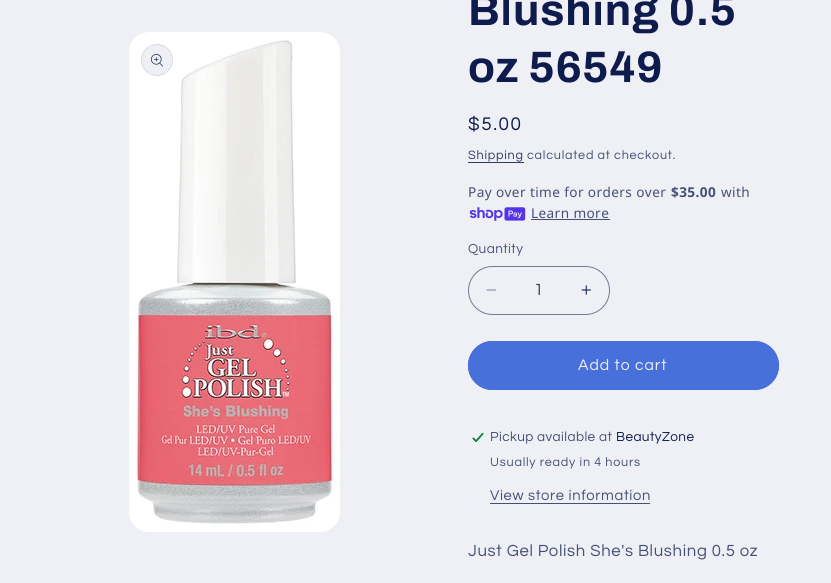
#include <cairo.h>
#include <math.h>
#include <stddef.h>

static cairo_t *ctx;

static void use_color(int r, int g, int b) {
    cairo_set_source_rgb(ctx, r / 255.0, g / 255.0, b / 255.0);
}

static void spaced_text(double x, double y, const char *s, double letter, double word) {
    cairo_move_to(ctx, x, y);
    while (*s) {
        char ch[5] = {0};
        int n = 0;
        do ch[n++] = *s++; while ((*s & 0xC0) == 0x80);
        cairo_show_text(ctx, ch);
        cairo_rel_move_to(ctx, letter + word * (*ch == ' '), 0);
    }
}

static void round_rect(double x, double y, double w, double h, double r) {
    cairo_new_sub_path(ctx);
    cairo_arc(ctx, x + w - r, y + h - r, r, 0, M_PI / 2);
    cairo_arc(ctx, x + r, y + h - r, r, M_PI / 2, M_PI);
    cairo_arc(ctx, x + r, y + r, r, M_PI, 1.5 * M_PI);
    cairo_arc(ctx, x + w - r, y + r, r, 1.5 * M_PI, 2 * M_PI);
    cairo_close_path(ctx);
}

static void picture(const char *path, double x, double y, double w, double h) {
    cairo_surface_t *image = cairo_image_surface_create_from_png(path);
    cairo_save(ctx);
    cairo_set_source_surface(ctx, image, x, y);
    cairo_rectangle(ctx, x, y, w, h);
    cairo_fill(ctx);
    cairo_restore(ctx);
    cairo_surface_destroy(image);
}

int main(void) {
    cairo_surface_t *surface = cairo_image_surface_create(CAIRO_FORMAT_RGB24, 831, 583);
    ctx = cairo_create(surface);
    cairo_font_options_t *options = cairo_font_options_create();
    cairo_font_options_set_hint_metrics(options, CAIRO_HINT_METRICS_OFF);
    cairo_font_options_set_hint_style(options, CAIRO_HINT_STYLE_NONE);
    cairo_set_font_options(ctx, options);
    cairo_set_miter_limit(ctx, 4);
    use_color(239, 240, 245);
    cairo_paint(ctx);
    picture("img1.png", 129, 32, 211, 500);
    use_color(239, 240, 245);
    cairo_arc(ctx, 157, 60, 16, 0, 2 * M_PI);
    cairo_fill(ctx);
    cairo_arc(ctx, 157, 60, 15.5, 0, 2 * M_PI);
    cairo_set_source_rgba(ctx, 0.055, 0.106, 0.302, 0.1);
    cairo_set_line_width(ctx, 1);
    cairo_stroke(ctx);
    picture("img2.png", 151, 54, 12, 13);
    cairo_select_font_face(ctx, "Archivo", CAIRO_FONT_SLANT_NORMAL, CAIRO_FONT_WEIGHT_BOLD);
    cairo_set_font_size(ctx, 44);
    use_color(14, 27, 77);
    spaced_text(468, 25, "Blushing 0.5", 0.7, 0);
    spaced_text(468, 82, "oz 56549", 0.7, 0);
    cairo_select_font_face(ctx, "Questrial", CAIRO_FONT_SLANT_NORMAL, CAIRO_FONT_WEIGHT_NORMAL);
    cairo_set_font_size(ctx, 19);
    spaced_text(468, 130, "$5.00", 1.5, 0);
    cairo_set_font_size(ctx, 12.6);
    use_color(48, 59, 102);
    spaced_text(468, 159, "Shipping", 0.75, 0);
    cairo_rectangle(ctx, 468, 162, 56, 1);
    cairo_fill(ctx);
    use_color(70, 80, 119);
    spaced_text(527, 159, "calculated at checkout.", 0.75, 0);
    cairo_select_font_face(ctx, "Noto Sans", CAIRO_FONT_SLANT_NORMAL, CAIRO_FONT_WEIGHT_NORMAL);
    cairo_set_font_size(ctx, 13.6);
    spaced_text(468, 197, "Pay over time for orders over", 0.4, 0);
    cairo_select_font_face(ctx, "Noto Sans", CAIRO_FONT_SLANT_NORMAL, CAIRO_FONT_WEIGHT_BOLD);
    spaced_text(671, 197, "$35.00", 0.4, 0);
    cairo_select_font_face(ctx, "Noto Sans", CAIRO_FONT_SLANT_NORMAL, CAIRO_FONT_WEIGHT_NORMAL);
    spaced_text(721, 197, "with", 0.4, 0);
    picture("img3.png", 469, 207, 57, 14);
    spaced_text(531, 218, "Learn more", 0.4, 0);
    cairo_rectangle(ctx, 531, 219, 79, 1);
    cairo_fill(ctx);
    cairo_select_font_face(ctx, "Questrial", CAIRO_FONT_SLANT_NORMAL, CAIRO_FONT_WEIGHT_NORMAL);
    spaced_text(468, 253, "Quantity", 0.4, 0);
    picture("img4.png", 486, 289, 10, 2);
    picture("img5.png", 581, 285, 10, 10);
    round_rect(468.5, 266.5, 141, 48, 24);
    use_color(115, 123, 153);
    cairo_stroke(ctx);
    cairo_set_font_size(ctx, 16.75);
    use_color(48, 59, 102);
    cairo_move_to(ctx, 534, 295);
    cairo_show_text(ctx, "1");
    use_color(71, 112, 219);
    round_rect(468, 341, 311, 49, 24.5);
    cairo_fill(ctx);
    round_rect(468.5, 341.5, 310, 48, 24);
    cairo_stroke(ctx);
    cairo_set_font_size(ctx, 15.75);
    use_color(239, 240, 245);
    spaced_text(578, 370, "Add to cart", 1, 0);
    picture("img6.png", 471, 432, 14, 11);
    cairo_set_font_size(ctx, 13.6);
    use_color(70, 80, 119);
    spaced_text(490, 441, "Pickup available at", 0.4, 0);
    use_color(14, 27, 77);
    spaced_text(616, 441, "BeautyZone", 0.4, 0);
    cairo_set_font_size(ctx, 12.6);
    use_color(70, 80, 119);
    spaced_text(490, 466, "Usually ready in 4 hours", 0.75, 0);
    cairo_set_font_size(ctx, 14.75);
    spaced_text(490, 500, "View store information", 0.65, 0);
    cairo_rectangle(ctx, 490, 503, 160, 1);
    cairo_fill(ctx);
    cairo_set_font_size(ctx, 16.75);
    spaced_text(468, 556, "Just Gel Polish She's Blushing 0.5 oz", 0.65, 0);
    cairo_surface_write_to_png(surface, "result.png");
    cairo_font_options_destroy(options);
    cairo_destroy(ctx);
    cairo_surface_destroy(surface);
    return 0;
}
